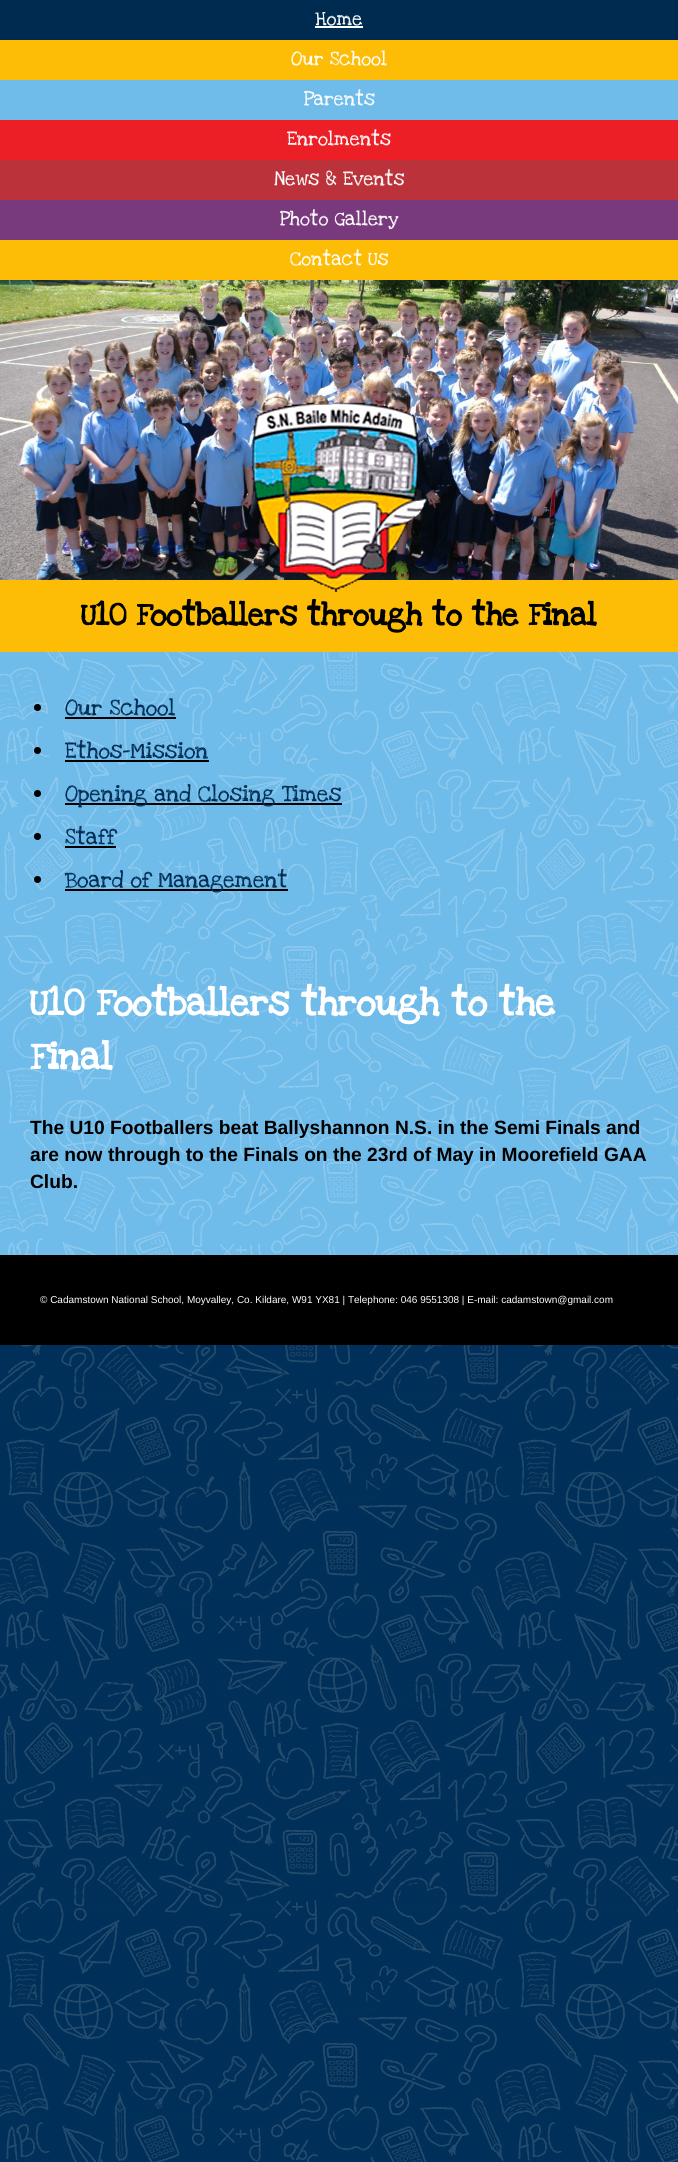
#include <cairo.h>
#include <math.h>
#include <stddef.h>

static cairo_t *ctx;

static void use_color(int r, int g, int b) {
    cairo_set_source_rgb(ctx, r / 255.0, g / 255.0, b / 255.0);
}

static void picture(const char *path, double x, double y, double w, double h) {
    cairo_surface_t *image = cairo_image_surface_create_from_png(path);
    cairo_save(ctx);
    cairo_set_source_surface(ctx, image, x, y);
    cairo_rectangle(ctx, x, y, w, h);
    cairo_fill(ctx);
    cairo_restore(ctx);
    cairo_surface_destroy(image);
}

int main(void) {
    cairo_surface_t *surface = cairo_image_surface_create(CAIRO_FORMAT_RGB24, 678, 2162);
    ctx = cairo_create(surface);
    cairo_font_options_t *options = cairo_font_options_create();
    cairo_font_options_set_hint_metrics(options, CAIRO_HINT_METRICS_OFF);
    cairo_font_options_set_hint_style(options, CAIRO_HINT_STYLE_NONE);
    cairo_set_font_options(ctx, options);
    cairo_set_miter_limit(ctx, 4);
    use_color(255, 255, 255);
    cairo_paint(ctx);
    picture("img1.png", 0, 1345, 678, 817);
    use_color(253, 188, 6);
    cairo_rectangle(ctx, 0, 40, 678, 240);
    cairo_fill(ctx);
    use_color(0, 43, 81);
    cairo_rectangle(ctx, 0, 0, 678, 40);
    cairo_fill(ctx);
    cairo_select_font_face(ctx, "Love Ya Like A Sister", CAIRO_FONT_SLANT_NORMAL, CAIRO_FONT_WEIGHT_NORMAL);
    cairo_set_font_size(ctx, 20);
    use_color(255, 255, 255);
    cairo_move_to(ctx, 315, 25);
    cairo_show_text(ctx, "Home");
    cairo_rectangle(ctx, 315, 26, 48, 2);
    cairo_fill(ctx);
    cairo_move_to(ctx, 291, 65);
    cairo_show_text(ctx, "Our School");
    use_color(111, 187, 234);
    cairo_rectangle(ctx, 0, 80, 678, 40);
    cairo_fill(ctx);
    use_color(255, 255, 255);
    cairo_move_to(ctx, 304, 105);
    cairo_show_text(ctx, "Parents");
    use_color(236, 31, 38);
    cairo_rectangle(ctx, 0, 120, 678, 40);
    cairo_fill(ctx);
    use_color(255, 255, 255);
    cairo_move_to(ctx, 287, 145);
    cairo_show_text(ctx, "Enrolments");
    use_color(188, 50, 58);
    cairo_rectangle(ctx, 0, 160, 678, 40);
    cairo_fill(ctx);
    use_color(255, 255, 255);
    cairo_move_to(ctx, 274, 185);
    cairo_show_text(ctx, "News & Events");
    use_color(120, 58, 125);
    cairo_rectangle(ctx, 0, 200, 678, 40);
    cairo_fill(ctx);
    use_color(255, 255, 255);
    cairo_move_to(ctx, 280, 225);
    cairo_show_text(ctx, "Photo Gallery");
    cairo_move_to(ctx, 290, 265);
    cairo_show_text(ctx, "Contact Us");
    picture("img2.png", 0, 280, 678, 300);
    use_color(253, 188, 6);
    cairo_rectangle(ctx, 0, 580, 678, 72);
    cairo_fill(ctx);
    picture("img3.png", 251, 400, 176, 192);
    cairo_select_font_face(ctx, "Love Ya Like A Sister", CAIRO_FONT_SLANT_NORMAL, CAIRO_FONT_WEIGHT_BOLD);
    cairo_set_font_size(ctx, 32);
    use_color(0, 0, 0);
    cairo_move_to(ctx, 81, 625);
    cairo_show_text(ctx, "U10 Footballers through to the Final");
    use_color(111, 187, 234);
    cairo_rectangle(ctx, 0, 652, 678, 603);
    cairo_fill(ctx);
    picture("img4.png", 0, 652, 678, 603);
    use_color(0, 0, 0);
    cairo_arc(ctx, 37.5, 707.5, 3.5, 0, 2 * M_PI);
    cairo_fill(ctx);
    cairo_select_font_face(ctx, "Love Ya Like A Sister", CAIRO_FONT_SLANT_NORMAL, CAIRO_FONT_WEIGHT_NORMAL);
    cairo_set_font_size(ctx, 23);
    use_color(0, 43, 81);
    cairo_move_to(ctx, 65, 715);
    cairo_show_text(ctx, "Our School");
    use_color(0, 0, 0);
    cairo_rectangle(ctx, 65, 717, 111, 2);
    cairo_fill(ctx);
    cairo_arc(ctx, 37.5, 750.5, 3.5, 0, 2 * M_PI);
    cairo_fill(ctx);
    use_color(0, 43, 81);
    cairo_move_to(ctx, 65, 758);
    cairo_show_text(ctx, "Ethos-Mission");
    use_color(0, 0, 0);
    cairo_rectangle(ctx, 65, 760, 144, 2);
    cairo_fill(ctx);
    cairo_arc(ctx, 37.5, 793.5, 3.5, 0, 2 * M_PI);
    cairo_fill(ctx);
    cairo_rectangle(ctx, 65, 803, 277, 2);
    cairo_fill(ctx);
    use_color(0, 43, 81);
    cairo_move_to(ctx, 65, 801);
    cairo_show_text(ctx, "Opening and Closing Times");
    use_color(0, 0, 0);
    cairo_new_path(ctx);
    cairo_arc(ctx, 37.5, 836.5, 3.5, 0, 2 * M_PI);
    cairo_fill(ctx);
    use_color(0, 43, 81);
    cairo_move_to(ctx, 65, 844);
    cairo_show_text(ctx, "Staff");
    use_color(0, 0, 0);
    cairo_rectangle(ctx, 65, 846, 51, 2);
    cairo_fill(ctx);
    cairo_arc(ctx, 37.5, 879.5, 3.5, 0, 2 * M_PI);
    cairo_fill(ctx);
    cairo_rectangle(ctx, 65, 889, 223, 2);
    cairo_fill(ctx);
    use_color(0, 43, 81);
    cairo_move_to(ctx, 65, 887);
    cairo_show_text(ctx, "Board of Management");
    cairo_select_font_face(ctx, "Love Ya Like A Sister", CAIRO_FONT_SLANT_NORMAL, CAIRO_FONT_WEIGHT_BOLD);
    cairo_set_font_size(ctx, 38.4);
    use_color(255, 255, 255);
    cairo_move_to(ctx, 30, 1015);
    cairo_show_text(ctx, "U10 Footballers through to the");
    cairo_move_to(ctx, 30, 1069);
    cairo_show_text(ctx, "Final");
    cairo_select_font_face(ctx, "Liberation Sans", CAIRO_FONT_SLANT_NORMAL, CAIRO_FONT_WEIGHT_BOLD);
    cairo_set_font_size(ctx, 19.2);
    use_color(0, 0, 0);
    cairo_move_to(ctx, 30, 1134);
    cairo_show_text(ctx, "The U10 Footballers beat Ballyshannon N.S. in the Semi Finals and");
    cairo_move_to(ctx, 30, 1161);
    cairo_show_text(ctx, "are now through to the Finals on the 23rd of May in Moorefield GAA");
    cairo_move_to(ctx, 30, 1188);
    cairo_show_text(ctx, "Club.");
    cairo_rectangle(ctx, 0, 1255, 678, 90);
    cairo_fill(ctx);
    cairo_select_font_face(ctx, "Liberation Sans", CAIRO_FONT_SLANT_NORMAL, CAIRO_FONT_WEIGHT_NORMAL);
    cairo_set_font_size(ctx, 10);
    use_color(255, 255, 255);
    cairo_move_to(ctx, 40, 1303);
    cairo_show_text(ctx, "© Cadamstown National School, Moyvalley, Co. Kildare, W91 YX81 | Telephone: 046 9551308 | E-mail: cadamstown@gmail.com");
    cairo_surface_write_to_png(surface, "result.png");
    cairo_font_options_destroy(options);
    cairo_destroy(ctx);
    cairo_surface_destroy(surface);
    return 0;
}
